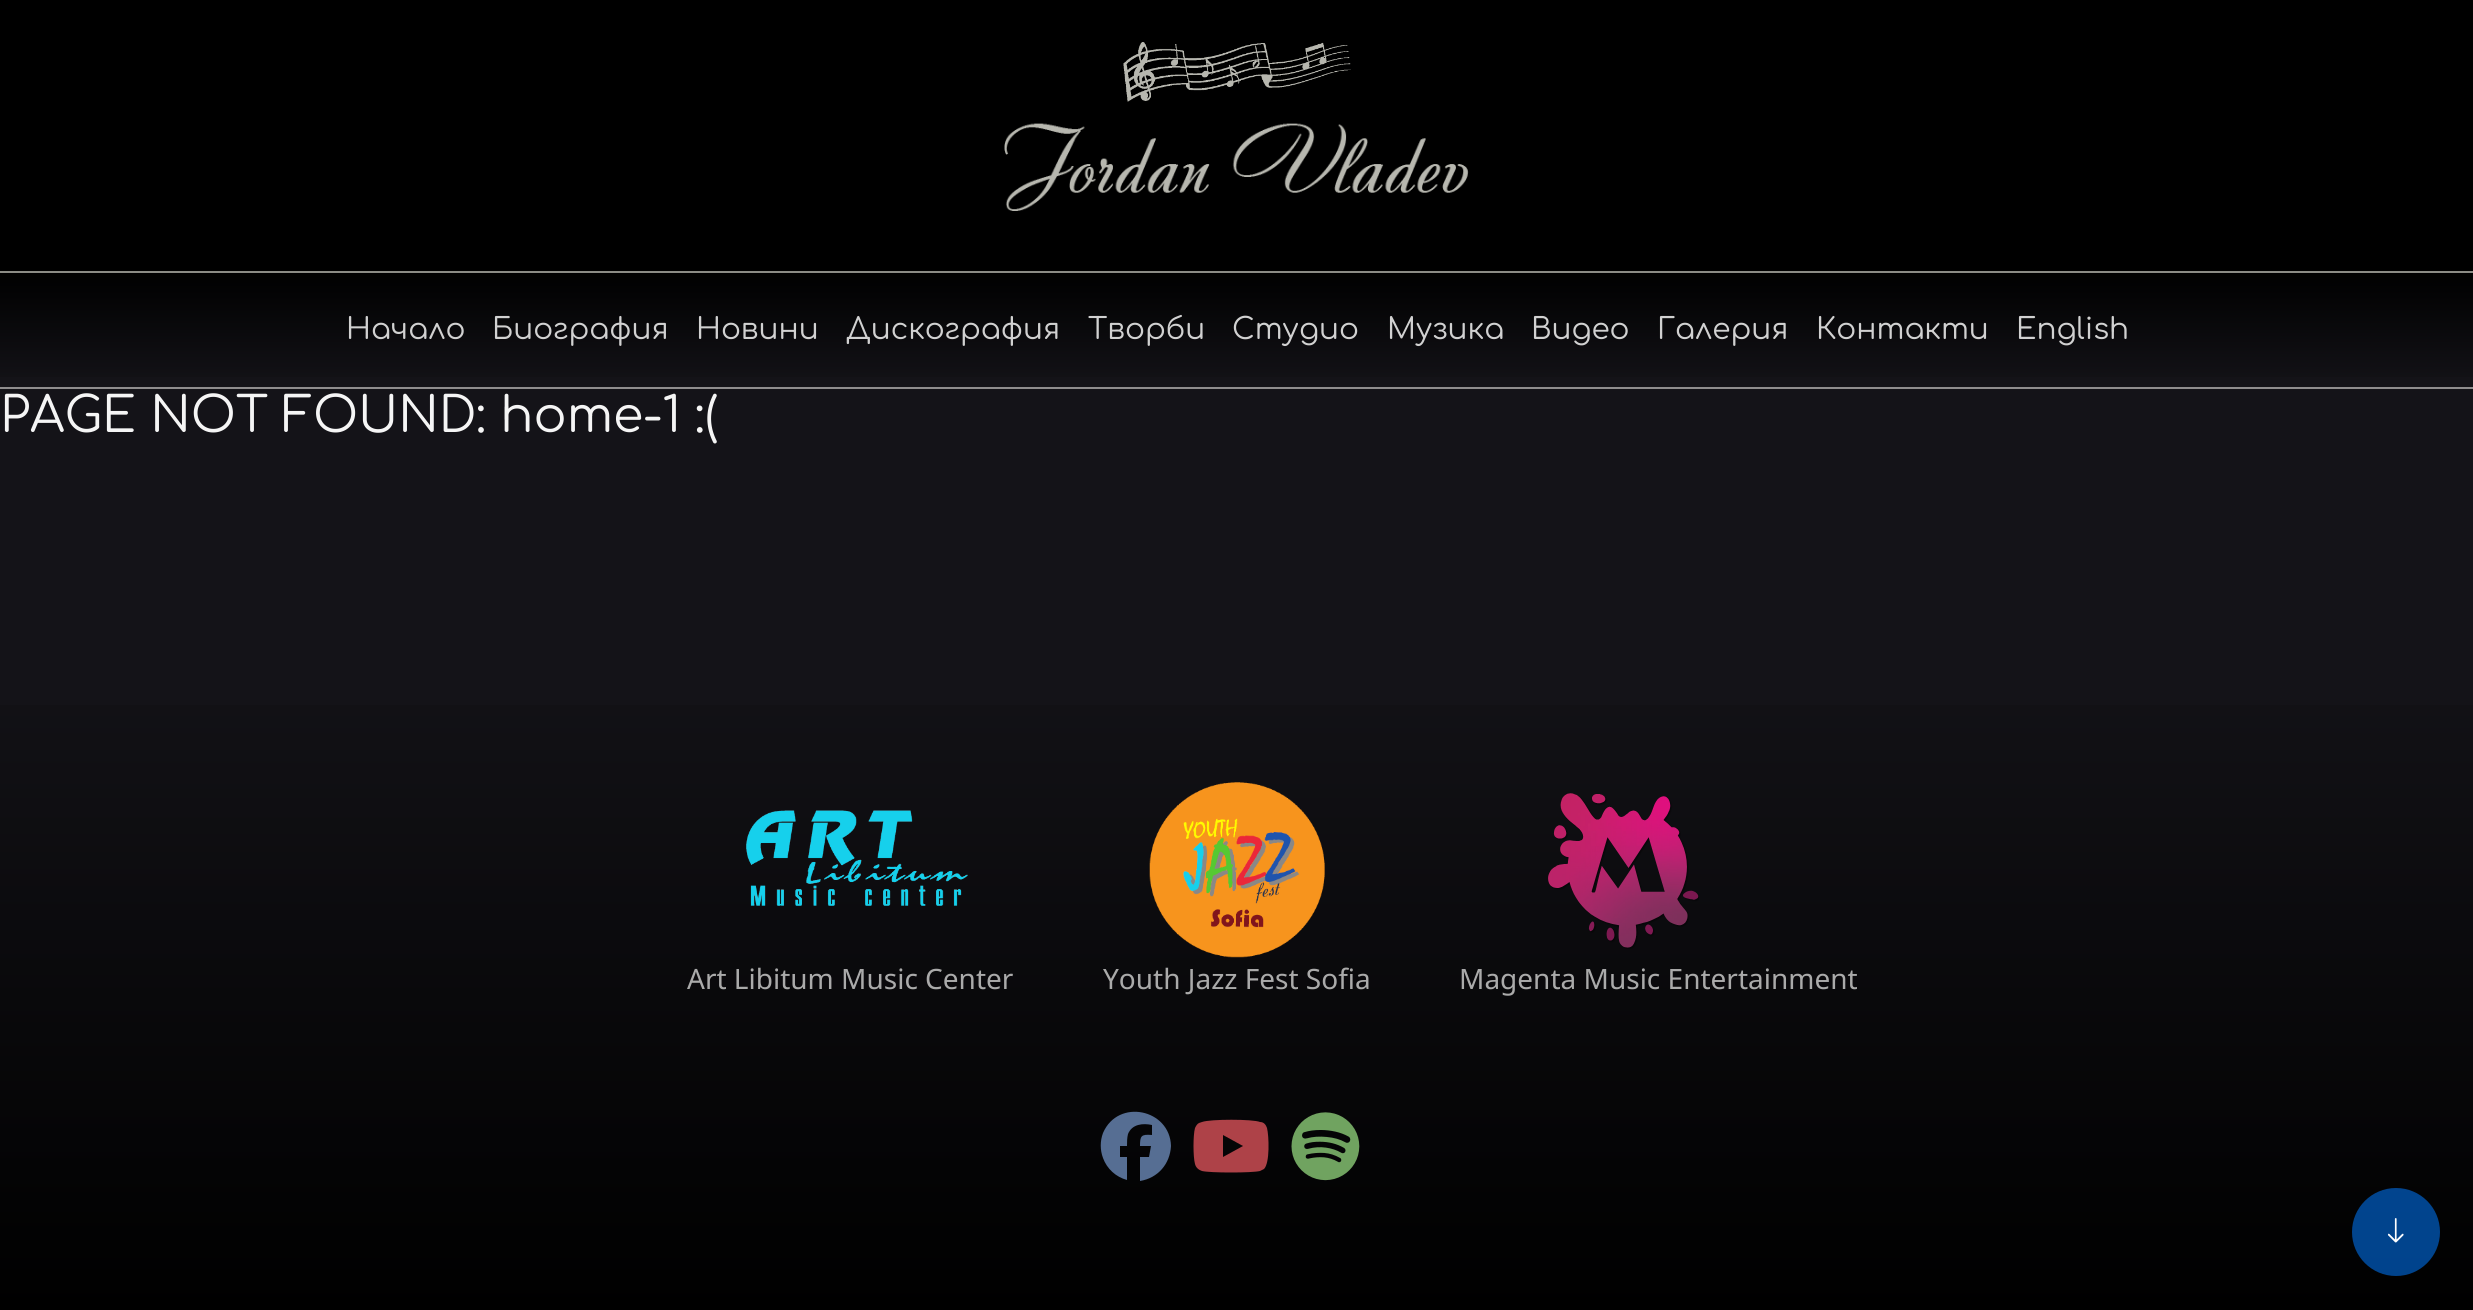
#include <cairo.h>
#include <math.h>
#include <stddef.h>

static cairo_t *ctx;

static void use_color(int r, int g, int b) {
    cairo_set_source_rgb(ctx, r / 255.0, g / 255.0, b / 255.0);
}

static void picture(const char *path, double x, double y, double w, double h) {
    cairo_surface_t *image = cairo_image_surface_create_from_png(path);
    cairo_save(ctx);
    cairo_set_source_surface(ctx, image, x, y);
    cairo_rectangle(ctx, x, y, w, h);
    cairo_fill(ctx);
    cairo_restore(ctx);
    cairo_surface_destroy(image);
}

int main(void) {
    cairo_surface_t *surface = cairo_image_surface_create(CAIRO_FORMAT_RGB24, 2473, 1310);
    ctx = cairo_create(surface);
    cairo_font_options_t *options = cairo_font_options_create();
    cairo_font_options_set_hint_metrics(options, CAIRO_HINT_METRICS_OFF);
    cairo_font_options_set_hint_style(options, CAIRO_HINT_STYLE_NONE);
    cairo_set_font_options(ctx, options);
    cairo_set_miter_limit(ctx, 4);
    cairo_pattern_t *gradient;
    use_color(20, 19, 24);
    cairo_paint(ctx);
    use_color(0, 0, 0);
    cairo_rectangle(ctx, 0, 0, 2473, 271);
    cairo_fill(ctx);
    picture("img1.png", 1123, 42, 228, 60);
    picture("img2.png", 1004, 123, 465, 88);
    gradient = cairo_pattern_create_linear(1237, 271, 1237, 389);
    cairo_pattern_add_color_stop_rgba(gradient, 0, 0, 0, 0, 1);
    cairo_pattern_add_color_stop_rgba(gradient, 1, 0.078, 0.075, 0.094, 1);
    cairo_set_source(ctx, gradient);
    cairo_pattern_destroy(gradient);
    cairo_rectangle(ctx, 0, 273, 2473, 104);
    cairo_fill(ctx);
    use_color(139, 139, 133);
    cairo_rectangle(ctx, 0, 271, 2473, 2);
    cairo_fill(ctx);
    use_color(143, 141, 142);
    cairo_rectangle(ctx, 0, 387, 2473, 2);
    cairo_fill(ctx);
    cairo_select_font_face(ctx, "Comfortaa", CAIRO_FONT_SLANT_NORMAL, CAIRO_FONT_WEIGHT_NORMAL);
    cairo_set_font_size(ctx, 29.5);
    use_color(209, 209, 209);
    cairo_move_to(ctx, 346, 339);
    cairo_show_text(ctx, "Начало");
    cairo_move_to(ctx, 492, 339);
    cairo_show_text(ctx, "Биография");
    cairo_move_to(ctx, 696, 339);
    cairo_show_text(ctx, "Новини");
    cairo_move_to(ctx, 846, 339);
    cairo_show_text(ctx, "Дискография");
    cairo_move_to(ctx, 1088, 339);
    cairo_show_text(ctx, "Творби");
    cairo_move_to(ctx, 1232, 339);
    cairo_show_text(ctx, "Студио");
    cairo_move_to(ctx, 1387, 339);
    cairo_show_text(ctx, "Музика");
    cairo_move_to(ctx, 1531, 339);
    cairo_show_text(ctx, "Видео");
    cairo_move_to(ctx, 1657, 339);
    cairo_show_text(ctx, "Галерия");
    cairo_move_to(ctx, 1816, 339);
    cairo_show_text(ctx, "Контакти");
    cairo_move_to(ctx, 2016, 339);
    cairo_show_text(ctx, "English");
    cairo_set_font_size(ctx, 49);
    use_color(245, 245, 245);
    cairo_move_to(ctx, 0, 432);
    cairo_show_text(ctx, "PAGE NOT FOUND: home-1 :(");
    gradient = cairo_pattern_create_linear(1237, 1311, 1237, 635);
    cairo_pattern_add_color_stop_rgba(gradient, 0, 0, 0, 0, 1);
    cairo_pattern_add_color_stop_rgba(gradient, 1, 0.078, 0.075, 0.094, 1);
    cairo_set_source(ctx, gradient);
    cairo_pattern_destroy(gradient);
    cairo_rectangle(ctx, 0, 705, 2473, 605);
    cairo_fill(ctx);
    picture("img3.png", 746, 810, 222, 96);
    cairo_select_font_face(ctx, "Noto Sans", CAIRO_FONT_SLANT_NORMAL, CAIRO_FONT_WEIGHT_NORMAL);
    cairo_set_font_size(ctx, 28);
    use_color(170, 170, 170);
    cairo_move_to(ctx, 687, 989);
    cairo_show_text(ctx, "Art Libitum Music Center");
    picture("img4.png", 1149, 782, 176, 176);
    cairo_move_to(ctx, 1103, 989);
    cairo_show_text(ctx, "Youth Jazz Fest Sofia");
    picture("img5.png", 1548, 793, 151, 156);
    cairo_move_to(ctx, 1459, 989);
    cairo_show_text(ctx, "Magenta Music Entertainment");
    use_color(86, 110, 147);
    cairo_new_path(ctx);
    cairo_move_to(ctx, 1171, 1146);
    cairo_curve_to(ctx, 1170, 1109, 1118, 1098, 1103, 1133);
    cairo_curve_to(ctx, 1100, 1141, 1100, 1150, 1103, 1158);
    cairo_curve_to(ctx, 1107, 1169, 1116, 1177, 1127, 1180);
    cairo_line_to(ctx, 1127, 1157);
    cairo_line_to(ctx, 1120, 1157);
    cairo_line_to(ctx, 1120, 1146);
    cairo_line_to(ctx, 1127, 1146);
    cairo_curve_to(ctx, 1127, 1142, 1127, 1138, 1128, 1134);
    cairo_curve_to(ctx, 1132, 1124, 1143, 1123, 1152, 1125);
    cairo_line_to(ctx, 1152, 1135);
    cairo_curve_to(ctx, 1141, 1134, 1140, 1136, 1140, 1146);
    cairo_line_to(ctx, 1151, 1146);
    cairo_line_to(ctx, 1149, 1157);
    cairo_line_to(ctx, 1140, 1157);
    cairo_line_to(ctx, 1140, 1181);
    cairo_curve_to(ctx, 1158, 1178, 1170, 1164, 1171, 1146);
    cairo_close_path(ctx);
    cairo_fill(ctx);
    use_color(174, 66, 72);
    cairo_new_path(ctx);
    cairo_move_to(ctx, 1267, 1128);
    cairo_curve_to(ctx, 1266, 1125, 1264, 1122, 1260, 1122);
    cairo_curve_to(ctx, 1253, 1119, 1210, 1119, 1202, 1122);
    cairo_line_to(ctx, 1199, 1123);
    cairo_curve_to(ctx, 1197, 1124, 1196, 1126, 1195, 1128);
    cairo_curve_to(ctx, 1193, 1135, 1193, 1157, 1195, 1164);
    cairo_curve_to(ctx, 1196, 1168, 1199, 1170, 1202, 1171);
    cairo_curve_to(ctx, 1210, 1173, 1252, 1173, 1260, 1171);
    cairo_line_to(ctx, 1264, 1169);
    cairo_curve_to(ctx, 1270, 1163, 1269, 1136, 1267, 1128);
    cairo_close_path(ctx);
    cairo_move_to(ctx, 1223, 1157);
    cairo_line_to(ctx, 1223, 1135);
    cairo_line_to(ctx, 1223, 1157);
    cairo_line_to(ctx, 1223, 1135);
    cairo_line_to(ctx, 1243, 1146);
    cairo_close_path(ctx);
    cairo_fill(ctx);
    picture("img6.png", 1291, 1112, 69, 69);
    cairo_set_source_rgba(ctx, 0, 0.482, 1, 0.55);
    cairo_arc(ctx, 2396, 1232, 44, 0, 2 * M_PI);
    cairo_fill(ctx);
    picture("img7.png", 2387, 1218, 17, 25);
    cairo_surface_write_to_png(surface, "result.png");
    cairo_font_options_destroy(options);
    cairo_destroy(ctx);
    cairo_surface_destroy(surface);
    return 0;
}
